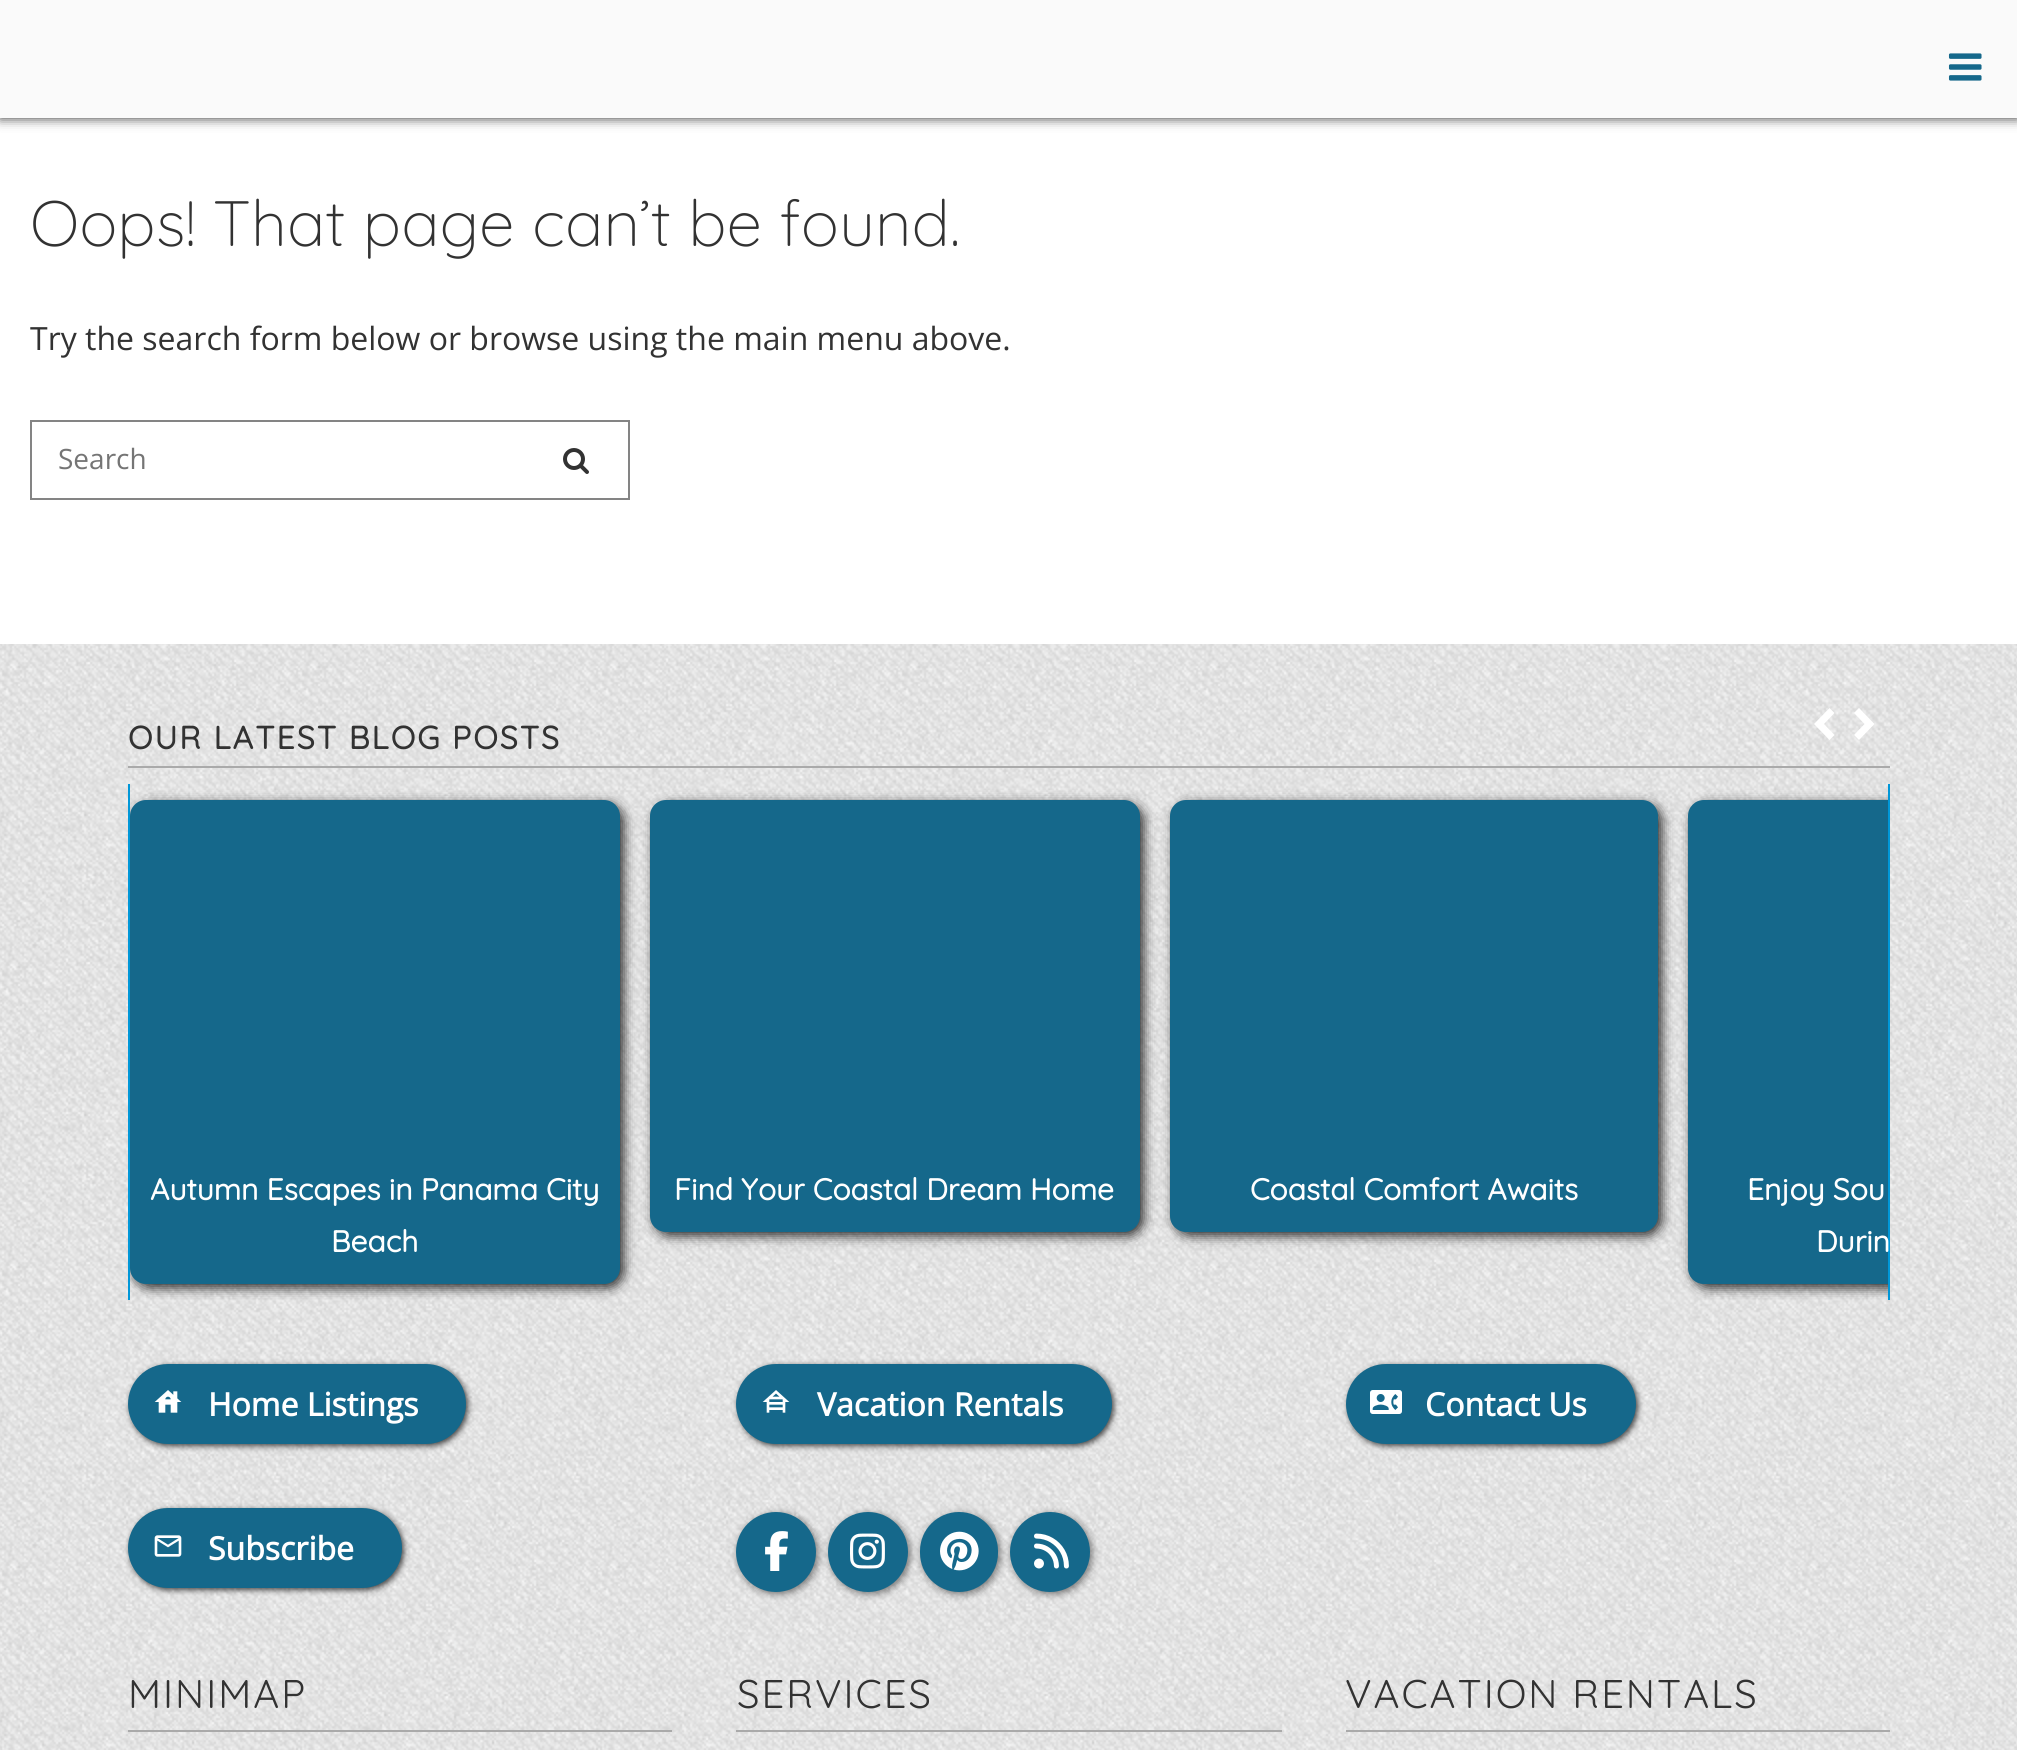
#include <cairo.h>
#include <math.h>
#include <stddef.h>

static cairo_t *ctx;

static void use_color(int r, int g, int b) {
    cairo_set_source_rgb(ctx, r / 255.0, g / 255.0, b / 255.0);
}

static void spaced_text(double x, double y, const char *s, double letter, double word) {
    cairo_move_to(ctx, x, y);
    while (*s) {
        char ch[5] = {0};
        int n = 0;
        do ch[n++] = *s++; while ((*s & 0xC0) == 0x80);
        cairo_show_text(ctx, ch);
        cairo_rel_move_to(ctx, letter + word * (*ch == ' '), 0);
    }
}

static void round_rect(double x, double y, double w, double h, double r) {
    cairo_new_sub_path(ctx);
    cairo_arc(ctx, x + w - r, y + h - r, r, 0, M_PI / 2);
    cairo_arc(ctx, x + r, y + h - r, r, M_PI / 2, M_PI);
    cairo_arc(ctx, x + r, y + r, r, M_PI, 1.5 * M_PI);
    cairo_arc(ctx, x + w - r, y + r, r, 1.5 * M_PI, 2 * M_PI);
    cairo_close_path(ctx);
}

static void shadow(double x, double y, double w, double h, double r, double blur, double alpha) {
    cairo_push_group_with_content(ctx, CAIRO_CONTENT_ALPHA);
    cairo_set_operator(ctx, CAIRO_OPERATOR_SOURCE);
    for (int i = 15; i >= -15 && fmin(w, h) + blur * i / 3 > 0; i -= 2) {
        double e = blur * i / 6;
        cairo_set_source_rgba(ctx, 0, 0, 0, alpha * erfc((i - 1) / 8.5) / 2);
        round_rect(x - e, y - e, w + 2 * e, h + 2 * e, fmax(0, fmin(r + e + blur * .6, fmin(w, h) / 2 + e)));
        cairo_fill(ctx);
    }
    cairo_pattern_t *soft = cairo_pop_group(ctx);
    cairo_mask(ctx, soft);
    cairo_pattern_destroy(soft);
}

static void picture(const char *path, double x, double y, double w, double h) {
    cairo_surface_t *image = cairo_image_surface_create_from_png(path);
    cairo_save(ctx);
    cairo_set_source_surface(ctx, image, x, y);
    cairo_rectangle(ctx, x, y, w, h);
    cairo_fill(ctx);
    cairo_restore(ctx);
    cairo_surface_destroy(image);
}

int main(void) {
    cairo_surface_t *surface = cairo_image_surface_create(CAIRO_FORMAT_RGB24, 2017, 1750);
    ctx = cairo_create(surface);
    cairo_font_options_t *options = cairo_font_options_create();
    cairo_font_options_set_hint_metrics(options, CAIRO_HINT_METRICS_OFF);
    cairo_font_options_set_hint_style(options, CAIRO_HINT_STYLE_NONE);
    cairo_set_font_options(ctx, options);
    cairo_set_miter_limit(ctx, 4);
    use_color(255, 255, 255);
    cairo_paint(ctx);
    use_color(0, 0, 0);
    shadow(0, 0, 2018, 118, 0, 6, 0.8);
    use_color(250, 250, 250);
    cairo_rectangle(ctx, 0, 0, 2017, 118);
    cairo_fill(ctx);
    picture("img1.png", 1948, 53, 34, 28);
    cairo_select_font_face(ctx, "Quicksand Light", CAIRO_FONT_SLANT_NORMAL, CAIRO_FONT_WEIGHT_NORMAL);
    cairo_set_font_size(ctx, 64);
    use_color(50, 50, 50);
    cairo_move_to(ctx, 30, 246);
    cairo_show_text(ctx, "Oops! That page can’t be found.");
    cairo_select_font_face(ctx, "Open Sans", CAIRO_FONT_SLANT_NORMAL, CAIRO_FONT_WEIGHT_NORMAL);
    cairo_set_font_size(ctx, 32);
    cairo_move_to(ctx, 30, 350);
    cairo_show_text(ctx, "Try the search form below or browse using the main menu above.");
    cairo_rectangle(ctx, 31, 421, 598, 78);
    use_color(132, 132, 132);
    cairo_stroke(ctx);
    cairo_set_font_size(ctx, 28);
    use_color(117, 117, 117);
    cairo_move_to(ctx, 58, 469);
    cairo_show_text(ctx, "Search");
    picture("img2.png", 563, 448, 26, 26);
    picture("img3.png", 0, 644, 2017, 1106);
    use_color(170, 170, 170);
    cairo_rectangle(ctx, 128, 766, 1762, 2);
    cairo_fill(ctx);
    cairo_select_font_face(ctx, "Quicksand", CAIRO_FONT_SLANT_NORMAL, CAIRO_FONT_WEIGHT_BOLD);
    cairo_set_font_size(ctx, 32);
    use_color(50, 50, 50);
    spaced_text(128, 749, "OUR LATEST BLOG POSTS", 2, 0);
    use_color(255, 255, 255);
    cairo_new_path(ctx);
    cairo_move_to(ctx, 1859, 740);
    cairo_line_to(ctx, 1874.5, 724);
    cairo_line_to(ctx, 1859, 708);
    cairo_line_to(ctx, 1854, 713);
    cairo_line_to(ctx, 1864.5, 724);
    cairo_line_to(ctx, 1854, 735);
    cairo_close_path(ctx);
    cairo_move_to(ctx, 1829.5, 708);
    cairo_line_to(ctx, 1814, 724);
    cairo_line_to(ctx, 1829.5, 740);
    cairo_line_to(ctx, 1834.5, 735);
    cairo_line_to(ctx, 1824, 724);
    cairo_line_to(ctx, 1834.5, 713);
    cairo_close_path(ctx);
    cairo_fill(ctx);
    use_color(0, 151, 216);
    cairo_rectangle(ctx, 1888, 784, 2, 516);
    cairo_fill(ctx);
    cairo_rectangle(ctx, 128, 784, 2, 516);
    cairo_fill(ctx);
    cairo_save(ctx);
    cairo_rectangle(ctx, 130, 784, 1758, 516);
    cairo_clip(ctx);
    use_color(0, 0, 0);
    shadow(134, 804, 490, 484, 16, 6, 0.8);
    cairo_restore(ctx);
    use_color(21, 104, 139);
    round_rect(130, 800, 490, 484, 16);
    cairo_fill(ctx);
    cairo_set_font_size(ctx, 30);
    use_color(255, 255, 255);
    cairo_move_to(ctx, 150, 1200);
    cairo_show_text(ctx, "Autumn Escapes in Panama City");
    cairo_move_to(ctx, 331, 1252);
    cairo_show_text(ctx, "Beach");
    use_color(0, 0, 0);
    shadow(654, 804, 490, 432, 16, 6, 0.8);
    use_color(21, 104, 139);
    round_rect(650, 800, 490, 432, 16);
    cairo_fill(ctx);
    use_color(255, 255, 255);
    cairo_move_to(ctx, 674, 1200);
    cairo_show_text(ctx, "Find Your Coastal Dream Home");
    use_color(0, 0, 0);
    shadow(1174, 804, 488, 432, 16, 6, 0.8);
    use_color(21, 104, 139);
    round_rect(1170, 800, 488, 432, 16);
    cairo_fill(ctx);
    use_color(255, 255, 255);
    cairo_move_to(ctx, 1250, 1200);
    cairo_show_text(ctx, "Coastal Comfort Awaits");
    cairo_save(ctx);
    cairo_rectangle(ctx, 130, 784, 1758, 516);
    cairo_clip(ctx);
    use_color(0, 0, 0);
    shadow(1692, 804, 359, 484, 16, 6, 0.8);
    cairo_restore(ctx);
    use_color(21, 104, 139);
    cairo_new_path(ctx);
    cairo_move_to(ctx, 1704, 800);
    cairo_line_to(ctx, 1888, 800);
    cairo_line_to(ctx, 1888, 1284);
    cairo_line_to(ctx, 1704, 1284);
    cairo_curve_to(ctx, 1695, 1284, 1688, 1277, 1688, 1268);
    cairo_line_to(ctx, 1688, 816);
    cairo_curve_to(ctx, 1688, 807, 1695, 800, 1704, 800);
    cairo_close_path(ctx);
    cairo_fill(ctx);
    use_color(255, 255, 255);
    cairo_move_to(ctx, 1747, 1200);
    cairo_show_text(ctx, "Enjoy Sou");
    cairo_move_to(ctx, 1816, 1252);
    cairo_show_text(ctx, "Durin");
    use_color(0, 0, 0);
    shadow(130, 1366, 338, 80, 40, 3, 0.7);
    use_color(21, 104, 139);
    round_rect(128, 1364, 338, 80, 40);
    cairo_fill(ctx);
    picture("img4.png", 154, 1390, 28, 23);
    cairo_select_font_face(ctx, "Open Sans", CAIRO_FONT_SLANT_NORMAL, CAIRO_FONT_WEIGHT_BOLD);
    cairo_set_font_size(ctx, 32);
    use_color(255, 255, 255);
    cairo_move_to(ctx, 208, 1416);
    cairo_show_text(ctx, "Home Listings");
    use_color(0, 0, 0);
    shadow(738, 1366, 376, 80, 40, 3, 0.7);
    use_color(21, 104, 139);
    round_rect(736, 1364, 376, 80, 40);
    cairo_fill(ctx);
    picture("img5.png", 762, 1390, 28, 23);
    use_color(255, 255, 255);
    cairo_move_to(ctx, 817, 1416);
    cairo_show_text(ctx, "Vacation Rentals");
    use_color(0, 0, 0);
    shadow(1348, 1366, 290, 80, 40, 3, 0.7);
    use_color(21, 104, 139);
    round_rect(1346, 1364, 290, 80, 40);
    cairo_fill(ctx);
    picture("img6.png", 1370, 1390, 32, 24);
    use_color(255, 255, 255);
    cairo_move_to(ctx, 1425, 1416);
    cairo_show_text(ctx, "Contact Us");
    use_color(0, 0, 0);
    shadow(130, 1510, 274, 80, 40, 3, 0.7);
    use_color(21, 104, 139);
    round_rect(128, 1508, 274, 80, 40);
    cairo_fill(ctx);
    picture("img7.png", 154, 1535, 28, 22);
    use_color(255, 255, 255);
    cairo_move_to(ctx, 208, 1560);
    cairo_show_text(ctx, "Subscribe");
    use_color(0, 0, 0);
    shadow(738, 1514, 80, 80, 40, 4, 0.5);
    use_color(21, 104, 139);
    cairo_arc(ctx, 776, 1552, 40, 0, 2 * M_PI);
    cairo_fill(ctx);
    picture("img8.png", 765, 1531, 23, 40);
    use_color(0, 0, 0);
    shadow(830, 1514, 80, 80, 40, 4, 0.5);
    use_color(21, 104, 139);
    cairo_arc(ctx, 868, 1552, 40, 0, 2 * M_PI);
    cairo_fill(ctx);
    picture("img9.png", 850, 1533, 35, 36);
    use_color(0, 0, 0);
    shadow(922, 1514, 78, 80, 39, 4, 0.5);
    use_color(21, 104, 139);
    round_rect(920, 1512, 78, 80, 39);
    cairo_fill(ctx);
    picture("img10.png", 940, 1531, 39, 40);
    use_color(0, 0, 0);
    shadow(1012, 1514, 80, 80, 40, 4, 0.5);
    use_color(21, 104, 139);
    cairo_arc(ctx, 1050, 1552, 40, 0, 2 * M_PI);
    cairo_fill(ctx);
    picture("img11.png", 1034, 1533, 35, 36);
    use_color(170, 170, 170);
    cairo_rectangle(ctx, 128, 1730, 544, 2);
    cairo_fill(ctx);
    cairo_select_font_face(ctx, "Quicksand", CAIRO_FONT_SLANT_NORMAL, CAIRO_FONT_WEIGHT_NORMAL);
    cairo_set_font_size(ctx, 40);
    use_color(50, 50, 50);
    spaced_text(128, 1708, "MINIMAP", 2, 0);
    use_color(170, 170, 170);
    cairo_rectangle(ctx, 736, 1730, 546, 2);
    cairo_fill(ctx);
    use_color(50, 50, 50);
    spaced_text(737, 1708, "SERVICES", 2, 0);
    use_color(170, 170, 170);
    cairo_rectangle(ctx, 1346, 1730, 544, 2);
    cairo_fill(ctx);
    use_color(50, 50, 50);
    spaced_text(1345, 1708, "VACATION RENTALS", 2, 0);
    cairo_surface_write_to_png(surface, "result.png");
    cairo_font_options_destroy(options);
    cairo_destroy(ctx);
    cairo_surface_destroy(surface);
    return 0;
}
